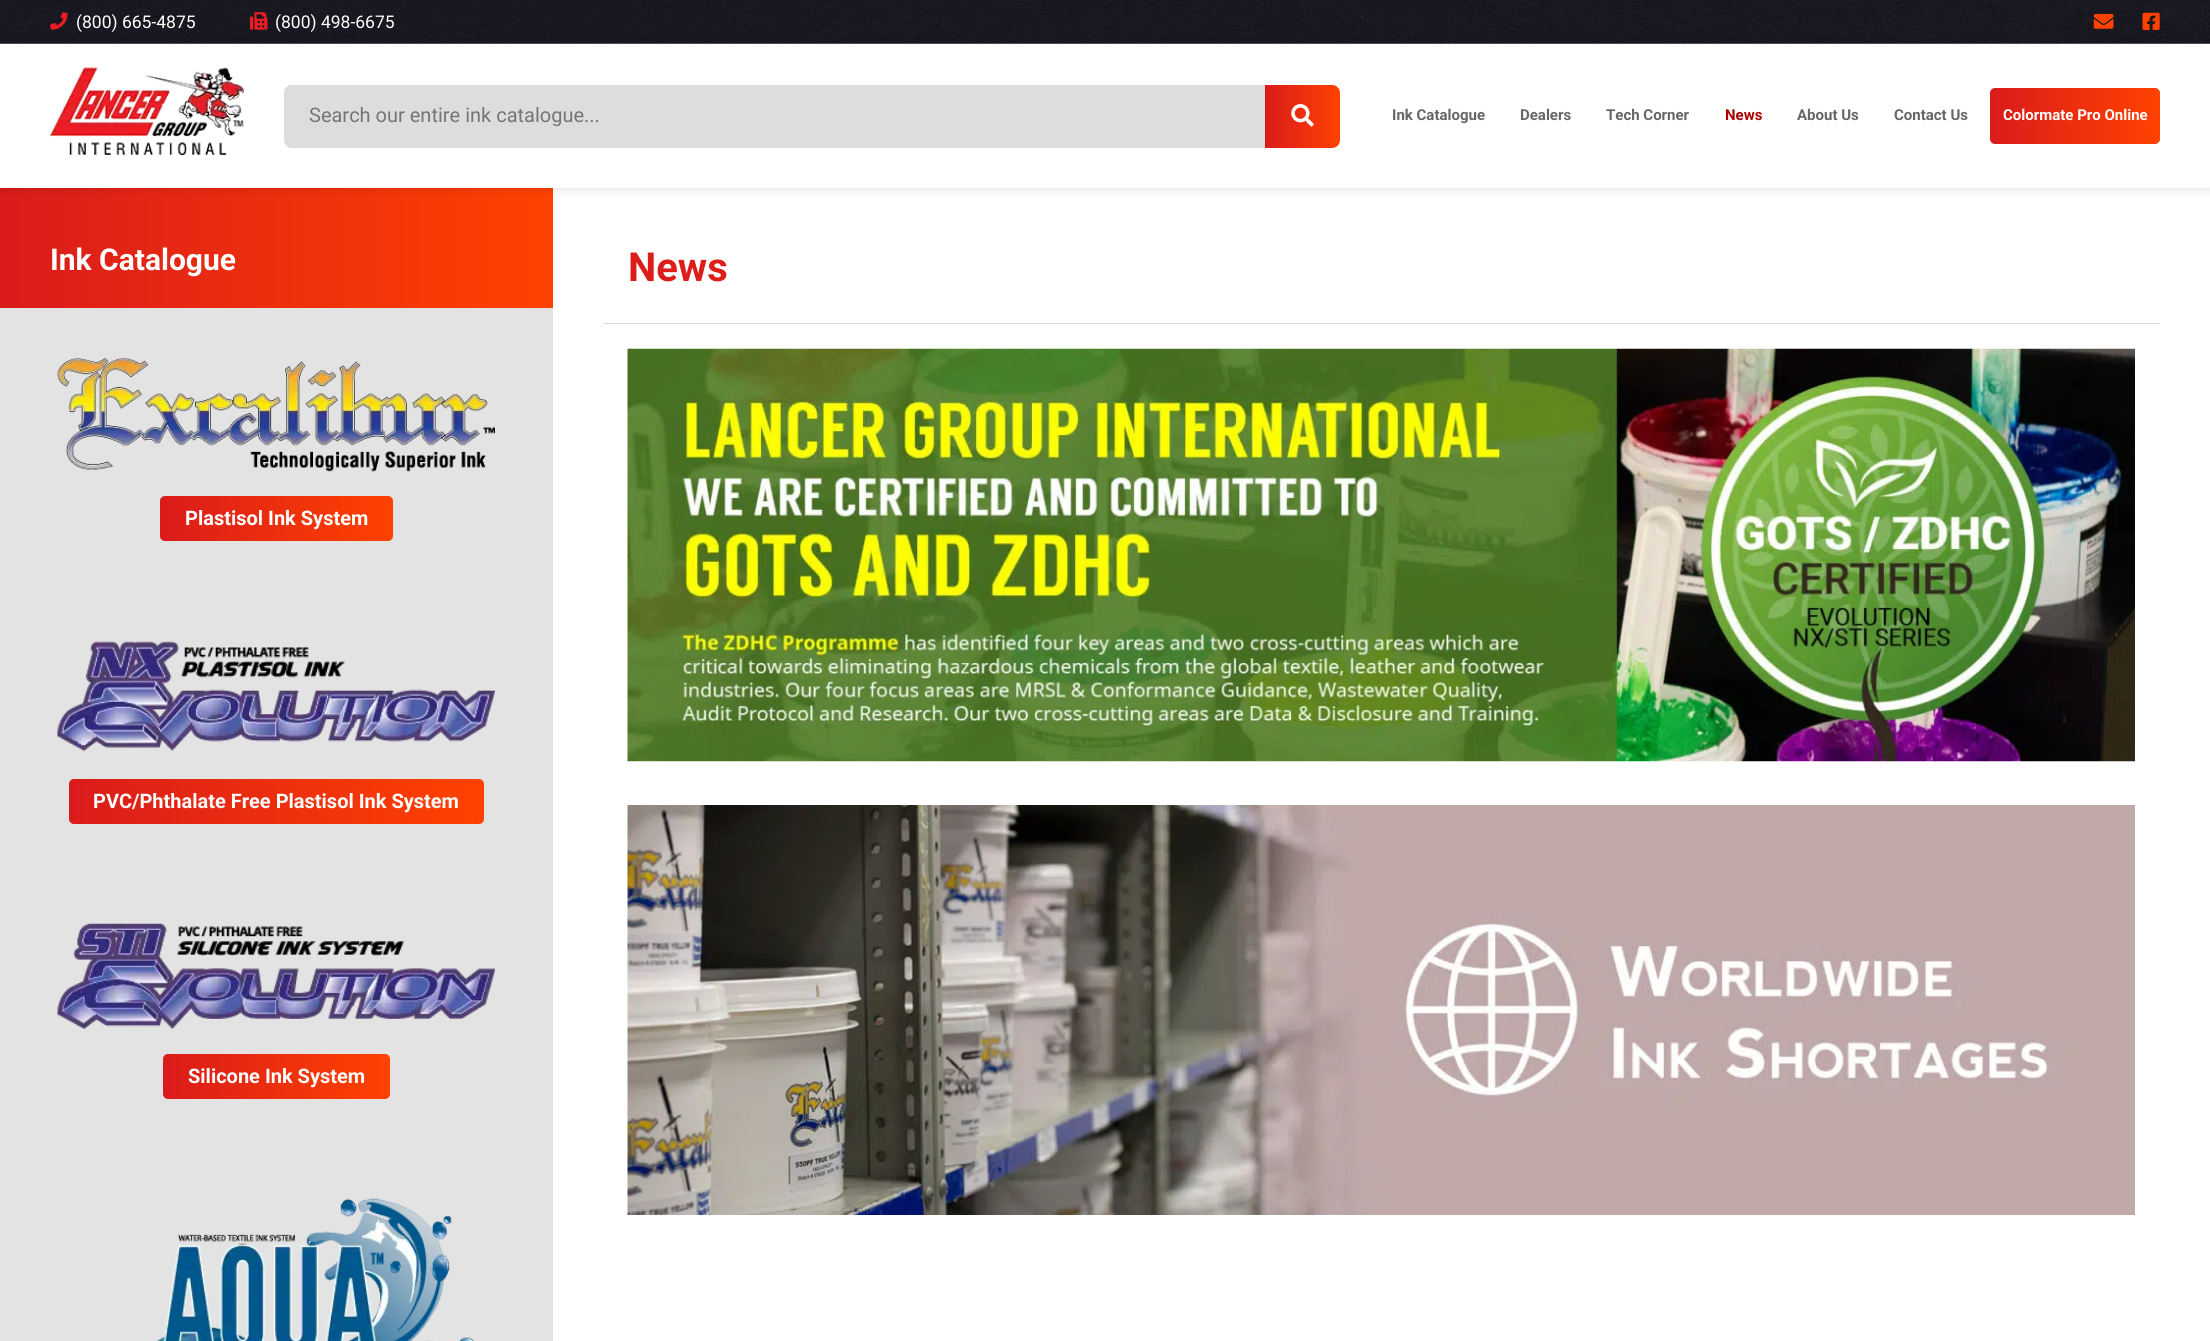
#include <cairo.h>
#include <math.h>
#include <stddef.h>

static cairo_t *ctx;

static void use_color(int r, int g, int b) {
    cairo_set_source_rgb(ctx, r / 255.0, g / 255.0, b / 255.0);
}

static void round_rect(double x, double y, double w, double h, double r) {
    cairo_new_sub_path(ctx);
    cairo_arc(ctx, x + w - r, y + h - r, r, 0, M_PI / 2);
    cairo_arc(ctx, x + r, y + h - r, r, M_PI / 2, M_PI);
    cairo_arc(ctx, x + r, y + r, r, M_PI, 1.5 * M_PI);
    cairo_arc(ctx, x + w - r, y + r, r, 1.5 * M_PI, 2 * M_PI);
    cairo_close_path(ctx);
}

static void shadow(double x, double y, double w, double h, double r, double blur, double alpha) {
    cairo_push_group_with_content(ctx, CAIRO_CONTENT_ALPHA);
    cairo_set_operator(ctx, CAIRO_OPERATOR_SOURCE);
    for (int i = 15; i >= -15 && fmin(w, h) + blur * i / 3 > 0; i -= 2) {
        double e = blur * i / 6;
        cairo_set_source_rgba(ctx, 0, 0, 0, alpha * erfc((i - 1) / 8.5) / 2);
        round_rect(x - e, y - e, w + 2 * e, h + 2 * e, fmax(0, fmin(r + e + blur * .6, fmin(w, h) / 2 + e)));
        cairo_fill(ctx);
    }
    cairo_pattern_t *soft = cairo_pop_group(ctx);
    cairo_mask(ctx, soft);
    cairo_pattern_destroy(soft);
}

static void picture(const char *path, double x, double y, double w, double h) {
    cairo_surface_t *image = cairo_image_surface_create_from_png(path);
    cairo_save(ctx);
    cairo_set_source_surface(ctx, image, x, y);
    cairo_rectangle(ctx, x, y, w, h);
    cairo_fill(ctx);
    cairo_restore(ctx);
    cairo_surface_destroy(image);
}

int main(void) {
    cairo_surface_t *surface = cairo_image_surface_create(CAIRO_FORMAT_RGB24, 2210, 1341);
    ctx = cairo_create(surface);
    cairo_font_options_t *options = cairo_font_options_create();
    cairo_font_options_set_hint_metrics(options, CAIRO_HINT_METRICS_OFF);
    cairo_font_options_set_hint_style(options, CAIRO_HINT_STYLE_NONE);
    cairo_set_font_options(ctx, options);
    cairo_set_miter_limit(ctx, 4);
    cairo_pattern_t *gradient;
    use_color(255, 255, 255);
    cairo_paint(ctx);
    picture("img1.png", 0, 0, 2210, 44);
    picture("img2.png", 50, 12, 18, 18);
    cairo_select_font_face(ctx, "Roboto", CAIRO_FONT_SLANT_NORMAL, CAIRO_FONT_WEIGHT_NORMAL);
    cairo_set_font_size(ctx, 17.5);
    use_color(255, 255, 255);
    cairo_move_to(ctx, 76, 28);
    cairo_show_text(ctx, "(800) 665-4875");
    picture("img3.png", 250, 12, 18, 18);
    cairo_move_to(ctx, 275, 28);
    cairo_show_text(ctx, "(800) 498-6675");
    picture("img4.png", 2093, 14, 21, 15);
    picture("img5.png", 2142, 12, 18, 18);
    gradient = cairo_pattern_create_linear(0, 248, 553, 248);
    cairo_pattern_add_color_stop_rgba(gradient, 0, 0.855, 0.106, 0.106, 1);
    cairo_pattern_add_color_stop_rgba(gradient, 1, 1, 0.259, 0, 1);
    cairo_set_source(ctx, gradient);
    cairo_pattern_destroy(gradient);
    cairo_rectangle(ctx, 0, 188, 553, 120);
    cairo_fill(ctx);
    cairo_save(ctx);
    cairo_set_fill_rule(ctx, CAIRO_FILL_RULE_EVEN_ODD);
    cairo_new_path(ctx);
    cairo_move_to(ctx, 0, 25);
    cairo_line_to(ctx, 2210, 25);
    cairo_line_to(ctx, 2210, 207);
    cairo_line_to(ctx, 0, 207);
    cairo_close_path(ctx);
    cairo_move_to(ctx, 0, 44);
    cairo_line_to(ctx, 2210, 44);
    cairo_line_to(ctx, 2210, 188);
    cairo_line_to(ctx, 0, 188);
    cairo_close_path(ctx);
    cairo_clip(ctx);
    use_color(0, 0, 0);
    shadow(0, 44, 2210, 144, 0, 6, 0.15);
    cairo_restore(ctx);
    picture("img6.png", 50, 67, 194, 88);
    use_color(221, 221, 222);
    cairo_new_path(ctx);
    cairo_move_to(ctx, 292, 85);
    cairo_line_to(ctx, 1265, 85);
    cairo_line_to(ctx, 1265, 148);
    cairo_line_to(ctx, 292, 148);
    cairo_curve_to(ctx, 287.5, 148, 284, 144.5, 284, 140);
    cairo_line_to(ctx, 284, 93);
    cairo_curve_to(ctx, 284, 88.5, 287.5, 85, 292, 85);
    cairo_close_path(ctx);
    cairo_fill(ctx);
    cairo_set_font_size(ctx, 20);
    use_color(117, 117, 117);
    cairo_move_to(ctx, 309, 122);
    cairo_show_text(ctx, "Search our entire ink catalogue...");
    gradient = cairo_pattern_create_linear(1265, 116, 1340, 116);
    cairo_pattern_add_color_stop_rgba(gradient, 0, 0.855, 0.106, 0.106, 1);
    cairo_pattern_add_color_stop_rgba(gradient, 1, 1, 0.259, 0, 1);
    cairo_set_source(ctx, gradient);
    cairo_pattern_destroy(gradient);
    cairo_new_path(ctx);
    cairo_move_to(ctx, 1265, 85);
    cairo_line_to(ctx, 1332, 85);
    cairo_curve_to(ctx, 1336.5, 85, 1340, 88.5, 1340, 93);
    cairo_line_to(ctx, 1340, 140);
    cairo_curve_to(ctx, 1340, 144.5, 1336.5, 148, 1332, 148);
    cairo_line_to(ctx, 1265, 148);
    cairo_close_path(ctx);
    cairo_fill(ctx);
    picture("img7.png", 1291, 104, 23, 23);
    cairo_select_font_face(ctx, "Roboto", CAIRO_FONT_SLANT_NORMAL, CAIRO_FONT_WEIGHT_BOLD);
    cairo_set_font_size(ctx, 15);
    use_color(102, 102, 102);
    cairo_move_to(ctx, 1392, 120);
    cairo_show_text(ctx, "Ink Catalogue");
    cairo_move_to(ctx, 1520, 120);
    cairo_show_text(ctx, "Dealers");
    cairo_move_to(ctx, 1606, 120);
    cairo_show_text(ctx, "Tech Corner");
    use_color(170, 0, 0);
    cairo_move_to(ctx, 1725, 120);
    cairo_show_text(ctx, "News");
    use_color(102, 102, 102);
    cairo_move_to(ctx, 1797, 120);
    cairo_show_text(ctx, "About Us");
    cairo_move_to(ctx, 1894, 120);
    cairo_show_text(ctx, "Contact Us");
    gradient = cairo_pattern_create_linear(1990, 116, 2160, 116);
    cairo_pattern_add_color_stop_rgba(gradient, 0, 0.855, 0.106, 0.106, 1);
    cairo_pattern_add_color_stop_rgba(gradient, 1, 1, 0.259, 0, 1);
    cairo_set_source(ctx, gradient);
    cairo_pattern_destroy(gradient);
    round_rect(1990, 88, 170, 56, 5);
    cairo_fill(ctx);
    use_color(255, 255, 255);
    cairo_move_to(ctx, 2003, 120);
    cairo_show_text(ctx, "Colormate Pro Online");
    use_color(227, 227, 227);
    cairo_rectangle(ctx, 0, 308, 553, 1033);
    cairo_fill(ctx);
    cairo_set_font_size(ctx, 30);
    use_color(255, 255, 255);
    cairo_move_to(ctx, 50, 270);
    cairo_show_text(ctx, "Ink Catalogue");
    picture("img8.png", 57, 358, 438, 114);
    gradient = cairo_pattern_create_linear(160, 519, 393, 519);
    cairo_pattern_add_color_stop_rgba(gradient, 0, 0.855, 0.106, 0.106, 1);
    cairo_pattern_add_color_stop_rgba(gradient, 1, 1, 0.259, 0, 1);
    cairo_set_source(ctx, gradient);
    cairo_pattern_destroy(gradient);
    round_rect(160, 496, 233, 45, 5);
    cairo_fill(ctx);
    cairo_set_font_size(ctx, 20);
    use_color(255, 255, 255);
    cairo_move_to(ctx, 185, 525);
    cairo_show_text(ctx, "Plastisol Ink System");
    picture("img9.png", 57, 641, 438, 111);
    gradient = cairo_pattern_create_linear(69, 801, 484, 801);
    cairo_pattern_add_color_stop_rgba(gradient, 0, 0.855, 0.106, 0.106, 1);
    cairo_pattern_add_color_stop_rgba(gradient, 1, 1, 0.259, 0, 1);
    cairo_set_source(ctx, gradient);
    cairo_pattern_destroy(gradient);
    round_rect(69, 779, 415, 45, 5);
    cairo_fill(ctx);
    use_color(255, 255, 255);
    cairo_move_to(ctx, 93, 808);
    cairo_show_text(ctx, "PVC/Phthalate Free Plastisol Ink System");
    picture("img10.png", 57, 923, 438, 106);
    gradient = cairo_pattern_create_linear(163, 1076, 390, 1076);
    cairo_pattern_add_color_stop_rgba(gradient, 0, 0.855, 0.106, 0.106, 1);
    cairo_pattern_add_color_stop_rgba(gradient, 1, 1, 0.259, 0, 1);
    cairo_set_source(ctx, gradient);
    cairo_pattern_destroy(gradient);
    round_rect(163, 1054, 227, 45, 5);
    cairo_fill(ctx);
    use_color(255, 255, 255);
    cairo_move_to(ctx, 188, 1083);
    cairo_show_text(ctx, "Silicone Ink System");
    picture("img11.png", 156, 1198, 318, 143);
    use_color(217, 217, 217);
    cairo_rectangle(ctx, 603, 323, 1557, 1);
    cairo_fill(ctx);
    cairo_set_font_size(ctx, 40);
    gradient = cairo_pattern_create_linear(603, 281, 2160, 281);
    cairo_pattern_add_color_stop_rgba(gradient, 0, 0.855, 0.106, 0.106, 1);
    cairo_pattern_add_color_stop_rgba(gradient, 1, 1, 0.259, 0, 1);
    cairo_set_source(ctx, gradient);
    cairo_pattern_destroy(gradient);
    cairo_move_to(ctx, 628, 281);
    cairo_show_text(ctx, "News");
    picture("img12.png", 627, 348, 1508, 414);
    picture("img13.png", 627, 805, 1508, 410);
    cairo_surface_write_to_png(surface, "result.png");
    cairo_font_options_destroy(options);
    cairo_destroy(ctx);
    cairo_surface_destroy(surface);
    return 0;
}
